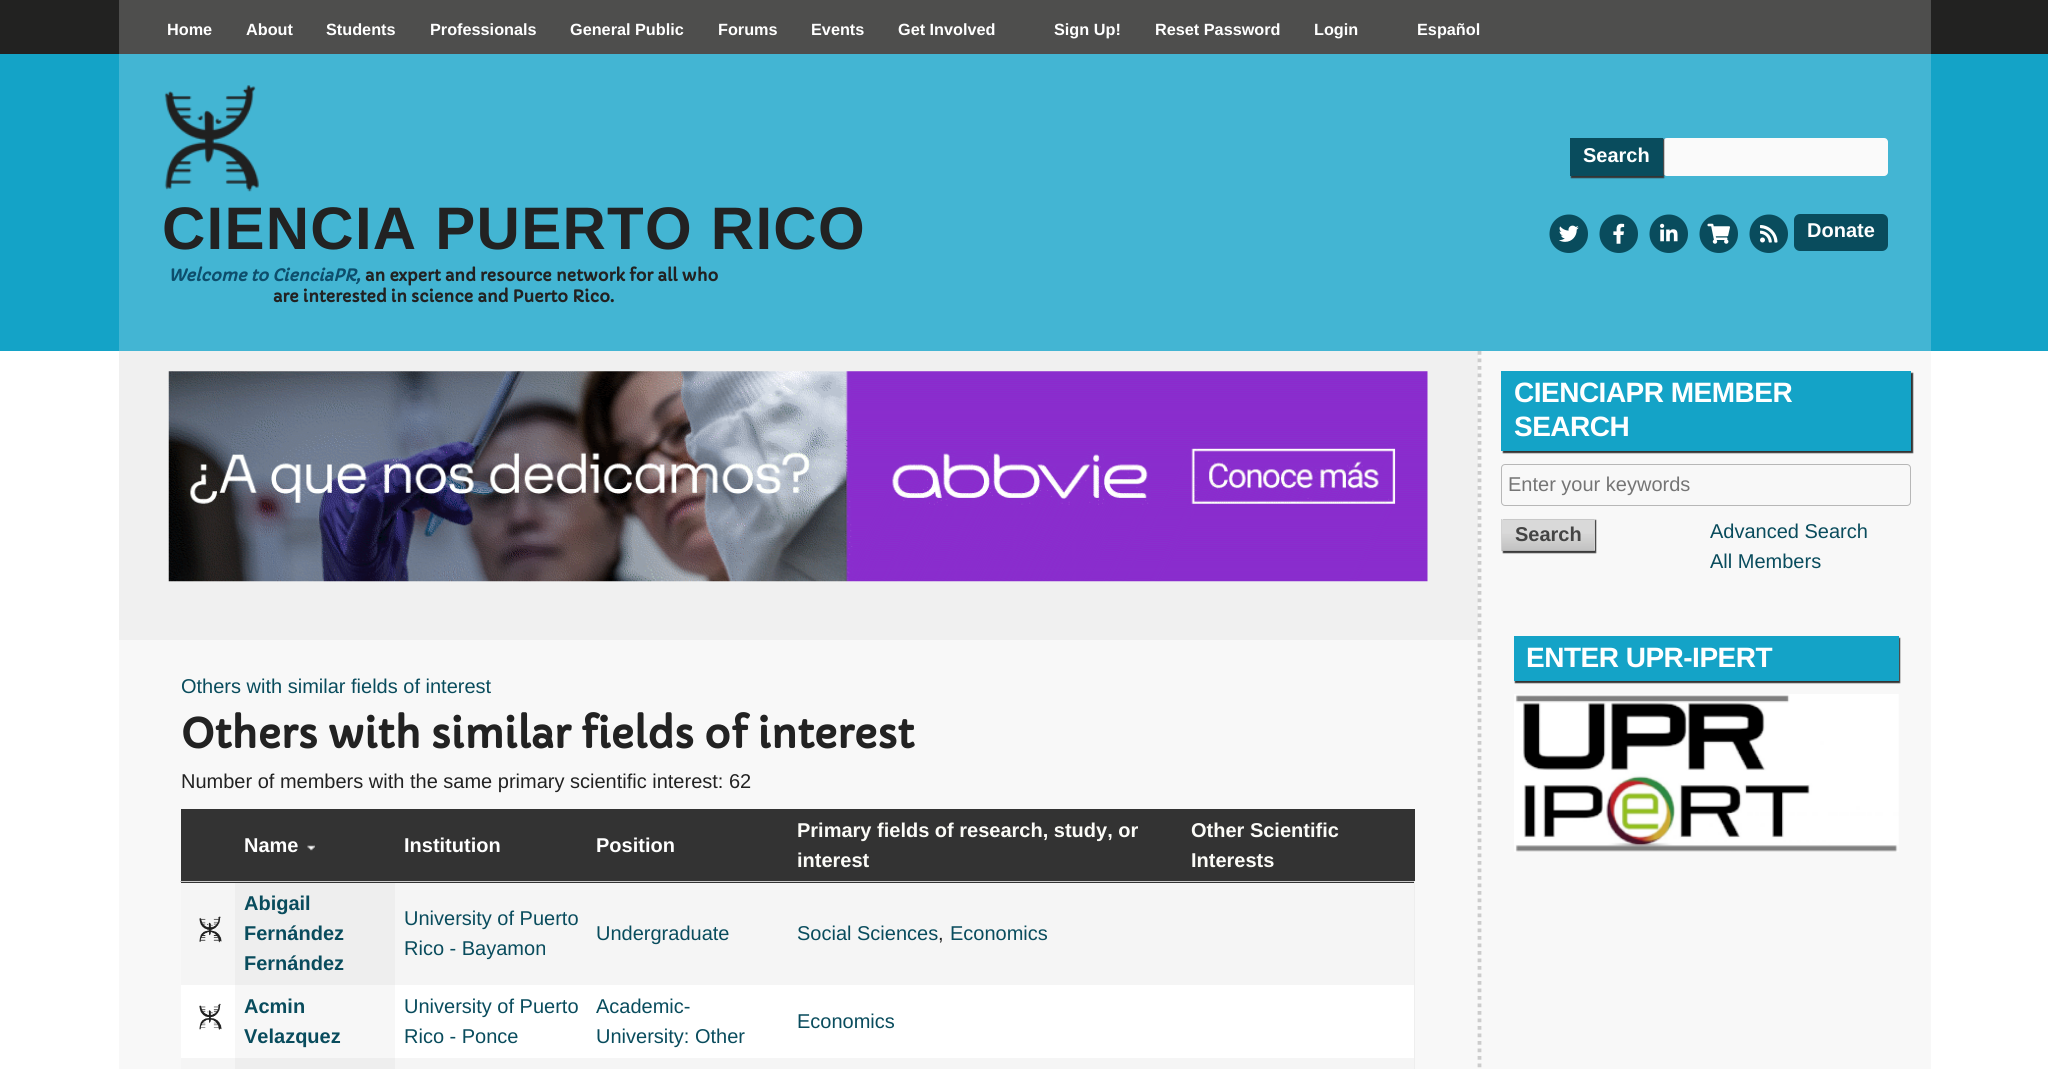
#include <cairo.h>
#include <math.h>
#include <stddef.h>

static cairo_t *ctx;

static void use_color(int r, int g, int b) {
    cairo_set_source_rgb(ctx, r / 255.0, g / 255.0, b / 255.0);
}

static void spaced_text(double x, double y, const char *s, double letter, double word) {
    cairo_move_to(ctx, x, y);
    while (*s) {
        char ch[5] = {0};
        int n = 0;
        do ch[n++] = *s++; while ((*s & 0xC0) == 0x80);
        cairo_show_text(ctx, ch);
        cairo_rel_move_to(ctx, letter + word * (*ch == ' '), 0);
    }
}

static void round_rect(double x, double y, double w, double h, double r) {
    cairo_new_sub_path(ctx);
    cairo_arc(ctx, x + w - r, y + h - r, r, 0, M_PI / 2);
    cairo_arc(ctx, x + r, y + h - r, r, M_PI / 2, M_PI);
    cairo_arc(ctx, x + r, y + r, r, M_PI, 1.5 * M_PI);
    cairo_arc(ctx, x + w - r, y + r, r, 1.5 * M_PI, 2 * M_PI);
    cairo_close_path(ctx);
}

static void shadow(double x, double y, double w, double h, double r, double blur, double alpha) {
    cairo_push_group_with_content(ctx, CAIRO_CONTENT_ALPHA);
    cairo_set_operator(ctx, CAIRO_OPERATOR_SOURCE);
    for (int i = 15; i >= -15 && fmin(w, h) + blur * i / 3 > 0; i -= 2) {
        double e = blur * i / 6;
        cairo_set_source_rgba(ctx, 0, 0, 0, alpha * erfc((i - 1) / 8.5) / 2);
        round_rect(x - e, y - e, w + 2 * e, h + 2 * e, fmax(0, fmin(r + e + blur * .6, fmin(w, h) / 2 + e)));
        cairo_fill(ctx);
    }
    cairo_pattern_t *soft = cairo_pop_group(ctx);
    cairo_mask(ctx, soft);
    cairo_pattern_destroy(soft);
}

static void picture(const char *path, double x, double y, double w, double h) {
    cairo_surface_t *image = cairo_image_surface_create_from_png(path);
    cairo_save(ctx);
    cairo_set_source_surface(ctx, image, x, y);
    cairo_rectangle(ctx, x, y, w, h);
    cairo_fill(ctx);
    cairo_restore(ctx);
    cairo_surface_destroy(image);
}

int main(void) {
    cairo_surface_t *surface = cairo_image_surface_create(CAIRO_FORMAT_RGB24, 2048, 1069);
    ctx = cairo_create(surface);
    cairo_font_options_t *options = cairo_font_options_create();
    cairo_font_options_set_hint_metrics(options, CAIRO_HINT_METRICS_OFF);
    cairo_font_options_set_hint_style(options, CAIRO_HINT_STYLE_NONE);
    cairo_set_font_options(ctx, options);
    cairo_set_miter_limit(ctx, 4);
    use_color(255, 255, 255);
    cairo_paint(ctx);
    use_color(34, 34, 33);
    cairo_rectangle(ctx, 0, 0, 2048, 54);
    cairo_fill(ctx);
    use_color(78, 78, 77);
    cairo_rectangle(ctx, 119, 0, 1812, 54);
    cairo_fill(ctx);
    cairo_select_font_face(ctx, "Liberation Sans", CAIRO_FONT_SLANT_NORMAL, CAIRO_FONT_WEIGHT_BOLD);
    cairo_set_font_size(ctx, 16.25);
    use_color(255, 255, 255);
    cairo_move_to(ctx, 167, 35);
    cairo_show_text(ctx, "Home");
    cairo_move_to(ctx, 246, 35);
    cairo_show_text(ctx, "About");
    cairo_move_to(ctx, 326, 35);
    cairo_show_text(ctx, "Students");
    cairo_move_to(ctx, 430, 35);
    cairo_show_text(ctx, "Professionals");
    cairo_move_to(ctx, 570, 35);
    cairo_show_text(ctx, "General Public");
    cairo_move_to(ctx, 718, 35);
    cairo_show_text(ctx, "Forums");
    cairo_move_to(ctx, 811, 35);
    cairo_show_text(ctx, "Events");
    cairo_move_to(ctx, 898, 35);
    cairo_show_text(ctx, "Get Involved");
    cairo_move_to(ctx, 1054, 35);
    cairo_show_text(ctx, "Sign Up!");
    cairo_move_to(ctx, 1155, 35);
    cairo_show_text(ctx, "Reset Password");
    cairo_move_to(ctx, 1314, 35);
    cairo_show_text(ctx, "Login");
    cairo_move_to(ctx, 1417, 35);
    cairo_show_text(ctx, "Español");
    use_color(20, 163, 199);
    cairo_rectangle(ctx, 0, 54, 2048, 297);
    cairo_fill(ctx);
    use_color(67, 181, 211);
    cairo_rectangle(ctx, 119, 54, 1812, 297);
    cairo_fill(ctx);
    use_color(250, 250, 250);
    round_rect(1663, 138, 225, 38, 4);
    cairo_fill(ctx);
    use_color(51, 51, 51);
    shadow(1571, 139, 93, 39, 0, 0.5, 1);
    use_color(9, 76, 93);
    cairo_rectangle(ctx, 1570, 138, 93, 38);
    cairo_fill(ctx);
    cairo_set_font_size(ctx, 20);
    use_color(255, 255, 255);
    cairo_move_to(ctx, 1583, 162);
    cairo_show_text(ctx, "Search");
    use_color(9, 76, 93);
    cairo_new_path(ctx);
    cairo_move_to(ctx, 1569, 214.5);
    cairo_curve_to(ctx, 1558, 214.5, 1549.5, 223, 1549.5, 234);
    cairo_curve_to(ctx, 1549.5, 244.5, 1558, 253, 1569, 253);
    cairo_curve_to(ctx, 1579.5, 253, 1588, 244.5, 1588, 234);
    cairo_curve_to(ctx, 1588, 223, 1579.5, 214.5, 1569, 214.5);
    cairo_close_path(ctx);
    cairo_fill(ctx);
    picture("img1.png", 1559, 225, 20, 17);
    cairo_new_path(ctx);
    cairo_move_to(ctx, 1619, 214.5);
    cairo_curve_to(ctx, 1608, 214.5, 1599.5, 223, 1599.5, 234);
    cairo_curve_to(ctx, 1599.5, 244.5, 1608, 253, 1619, 253);
    cairo_curve_to(ctx, 1629.5, 253, 1638, 244.5, 1638, 234);
    cairo_curve_to(ctx, 1638, 223, 1629.5, 214.5, 1619, 214.5);
    cairo_close_path(ctx);
    cairo_fill(ctx);
    picture("img2.png", 1613, 223, 12, 21);
    cairo_new_path(ctx);
    cairo_move_to(ctx, 1669, 214.5);
    cairo_curve_to(ctx, 1658, 214.5, 1649.5, 223, 1649.5, 234);
    cairo_curve_to(ctx, 1649.5, 244.5, 1658, 253, 1669, 253);
    cairo_curve_to(ctx, 1679.5, 253, 1688, 244.5, 1688, 234);
    cairo_curve_to(ctx, 1688, 223, 1679.5, 214.5, 1669, 214.5);
    cairo_close_path(ctx);
    cairo_fill(ctx);
    picture("img3.png", 1660, 223, 18, 19);
    cairo_new_path(ctx);
    cairo_move_to(ctx, 1719, 214.5);
    cairo_curve_to(ctx, 1708, 214.5, 1699.5, 223, 1699.5, 234);
    cairo_curve_to(ctx, 1699.5, 244.5, 1708, 253, 1719, 253);
    cairo_curve_to(ctx, 1729.5, 253, 1738, 244.5, 1738, 234);
    cairo_curve_to(ctx, 1738, 223, 1729.5, 214.5, 1719, 214.5);
    cairo_close_path(ctx);
    cairo_fill(ctx);
    picture("img4.png", 1707, 223, 23, 21);
    cairo_new_path(ctx);
    cairo_move_to(ctx, 1769, 214.5);
    cairo_curve_to(ctx, 1758, 214.5, 1749.5, 223, 1749.5, 234);
    cairo_curve_to(ctx, 1749.5, 244.5, 1758, 253, 1769, 253);
    cairo_curve_to(ctx, 1779.5, 253, 1788, 244.5, 1788, 234);
    cairo_curve_to(ctx, 1788, 223, 1779.5, 214.5, 1769, 214.5);
    cairo_close_path(ctx);
    cairo_fill(ctx);
    picture("img5.png", 1760, 225, 18, 18);
    round_rect(1794, 214, 94, 37, 6);
    cairo_fill(ctx);
    use_color(255, 255, 255);
    cairo_move_to(ctx, 1807, 237);
    cairo_show_text(ctx, "Donate");
    picture("img6.png", 164, 85, 95, 107);
    cairo_set_font_size(ctx, 60);
    use_color(34, 34, 34);
    spaced_text(162, 249, "CIENCIA PUERTO RICO", 1.25, 0);
    cairo_select_font_face(ctx, "Capriola", CAIRO_FONT_SLANT_ITALIC, CAIRO_FONT_WEIGHT_BOLD);
    cairo_set_font_size(ctx, 16.25);
    use_color(13, 78, 108);
    cairo_move_to(ctx, 168, 281);
    cairo_show_text(ctx, "Welcome to CienciaPR,");
    cairo_select_font_face(ctx, "Capriola", CAIRO_FONT_SLANT_NORMAL, CAIRO_FONT_WEIGHT_BOLD);
    use_color(34, 34, 34);
    cairo_move_to(ctx, 365, 281);
    cairo_show_text(ctx, "an expert and resource network for all who");
    cairo_move_to(ctx, 273, 302);
    cairo_show_text(ctx, "are interested in science and Puerto Rico.");
    use_color(248, 248, 248);
    cairo_rectangle(ctx, 119, 351, 1812, 718);
    cairo_fill(ctx);
    use_color(240, 240, 240);
    cairo_rectangle(ctx, 119, 351, 1359, 289);
    cairo_fill(ctx);
    cairo_new_path(ctx);
    cairo_move_to(ctx, 1479.5, 351);
    cairo_line_to(ctx, 1479.5, 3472.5);
    use_color(204, 204, 204);
    cairo_set_line_width(ctx, 3.8);
    cairo_set_dash(ctx, (double[]){3.75, 3.75}, 2, 0);
    cairo_stroke(ctx);
    use_color(51, 51, 51);
    shadow(1503, 373, 410, 80, 0, 0.5, 1);
    use_color(20, 163, 199);
    cairo_rectangle(ctx, 1501, 371, 410, 80);
    cairo_fill(ctx);
    cairo_select_font_face(ctx, "Liberation Sans", CAIRO_FONT_SLANT_NORMAL, CAIRO_FONT_WEIGHT_BOLD);
    cairo_set_font_size(ctx, 28);
    use_color(255, 255, 255);
    spaced_text(1514, 402, "CIENCIAPR MEMBER", -0.5, 0);
    spaced_text(1514, 436, "SEARCH", -0.5, 0);
    round_rect(1501.5, 464.5, 409, 41, 3.5);
    use_color(183, 183, 183);
    cairo_set_line_width(ctx, 1);
    cairo_set_dash(ctx, NULL, 0, 0);
    cairo_stroke(ctx);
    cairo_select_font_face(ctx, "Liberation Sans", CAIRO_FONT_SLANT_NORMAL, CAIRO_FONT_WEIGHT_NORMAL);
    cairo_set_font_size(ctx, 20);
    use_color(117, 117, 117);
    cairo_move_to(ctx, 1508, 491);
    cairo_show_text(ctx, "Enter your keywords");
    use_color(51, 51, 51);
    shadow(1503, 520, 93, 33, 0, 0.5, 1);
    use_color(204, 204, 204);
    cairo_rectangle(ctx, 1502, 520, 92, 30);
    cairo_fill(ctx);
    picture("img7.png", 1501, 520, 94, 32);
    use_color(228, 228, 228);
    cairo_rectangle(ctx, 1501, 519, 2, 1);
    cairo_fill(ctx);
    use_color(210, 210, 210);
    cairo_rectangle(ctx, 1594, 519, 1, 32);
    cairo_fill(ctx);
    use_color(180, 180, 180);
    cairo_rectangle(ctx, 1501, 550, 94, 1);
    cairo_fill(ctx);
    use_color(210, 210, 210);
    cairo_rectangle(ctx, 1501, 519, 1, 32);
    cairo_fill(ctx);
    cairo_select_font_face(ctx, "Liberation Sans", CAIRO_FONT_SLANT_NORMAL, CAIRO_FONT_WEIGHT_BOLD);
    use_color(68, 68, 68);
    cairo_move_to(ctx, 1515, 541);
    cairo_show_text(ctx, "Search");
    cairo_select_font_face(ctx, "Liberation Sans", CAIRO_FONT_SLANT_NORMAL, CAIRO_FONT_WEIGHT_NORMAL);
    use_color(9, 76, 93);
    cairo_move_to(ctx, 1710, 538);
    cairo_show_text(ctx, "Advanced Search");
    cairo_move_to(ctx, 1710, 568);
    cairo_show_text(ctx, "All Members");
    use_color(51, 51, 51);
    shadow(1515, 638, 385, 45, 0, 0.5, 1);
    use_color(20, 163, 199);
    cairo_rectangle(ctx, 1514, 636, 385, 45);
    cairo_fill(ctx);
    cairo_select_font_face(ctx, "Liberation Sans", CAIRO_FONT_SLANT_NORMAL, CAIRO_FONT_WEIGHT_BOLD);
    cairo_set_font_size(ctx, 28);
    use_color(255, 255, 255);
    spaced_text(1526, 667, "ENTER UPR-IPERT", -0.5, 0);
    picture("img8.png", 1514, 694, 385, 158);
    picture("img9.png", 168, 371, 1260, 211);
    cairo_select_font_face(ctx, "Liberation Sans", CAIRO_FONT_SLANT_NORMAL, CAIRO_FONT_WEIGHT_NORMAL);
    cairo_set_font_size(ctx, 20);
    use_color(9, 76, 93);
    cairo_move_to(ctx, 181, 693);
    cairo_show_text(ctx, "Others with similar fields of interest");
    cairo_select_font_face(ctx, "Capriola", CAIRO_FONT_SLANT_NORMAL, CAIRO_FONT_WEIGHT_BOLD);
    cairo_set_font_size(ctx, 40);
    use_color(34, 34, 34);
    cairo_move_to(ctx, 181, 748);
    cairo_show_text(ctx, "Others with similar fields of interest");
    cairo_select_font_face(ctx, "Liberation Sans", CAIRO_FONT_SLANT_NORMAL, CAIRO_FONT_WEIGHT_NORMAL);
    cairo_set_font_size(ctx, 20);
    cairo_move_to(ctx, 181, 788);
    cairo_show_text(ctx, "Number of members with the same primary scientific interest: 62");
    use_color(51, 51, 51);
    cairo_rectangle(ctx, 181, 809, 1234, 74);
    cairo_fill(ctx);
    cairo_select_font_face(ctx, "Liberation Sans", CAIRO_FONT_SLANT_NORMAL, CAIRO_FONT_WEIGHT_BOLD);
    use_color(255, 255, 255);
    cairo_move_to(ctx, 244, 852);
    cairo_show_text(ctx, "Name");
    picture("img10.png", 307, 845, 8, 6);
    cairo_move_to(ctx, 404, 852);
    cairo_show_text(ctx, "Institution");
    cairo_move_to(ctx, 596, 852);
    cairo_show_text(ctx, "Position");
    use_color(252, 252, 248);
    cairo_move_to(ctx, 797, 837);
    cairo_show_text(ctx, "Primary fields of research, study, or");
    cairo_move_to(ctx, 797, 867);
    cairo_show_text(ctx, "interest");
    cairo_move_to(ctx, 1191, 837);
    cairo_show_text(ctx, "Other Scientific");
    cairo_move_to(ctx, 1191, 867);
    cairo_show_text(ctx, "Interests");
    use_color(204, 204, 204);
    cairo_rectangle(ctx, 180, 881, 1235, 1);
    cairo_fill(ctx);
    use_color(245, 245, 245);
    cairo_rectangle(ctx, 181, 1058, 1233, 11);
    cairo_fill(ctx);
    use_color(238, 238, 238);
    cairo_rectangle(ctx, 235, 1058, 160, 11);
    cairo_fill(ctx);
    cairo_rectangle(ctx, 1414, 881, 1, 188);
    cairo_fill(ctx);
    use_color(245, 245, 245);
    cairo_rectangle(ctx, 181, 883, 1233, 102);
    cairo_fill(ctx);
    picture("img11.png", 199, 916, 23, 27);
    use_color(238, 238, 238);
    cairo_rectangle(ctx, 235, 883, 160, 102);
    cairo_fill(ctx);
    use_color(9, 76, 93);
    cairo_move_to(ctx, 244, 910);
    cairo_show_text(ctx, "Abigail");
    cairo_move_to(ctx, 244, 940);
    cairo_show_text(ctx, "Fernández");
    cairo_move_to(ctx, 244, 970);
    cairo_show_text(ctx, "Fernández");
    cairo_select_font_face(ctx, "Liberation Sans", CAIRO_FONT_SLANT_NORMAL, CAIRO_FONT_WEIGHT_NORMAL);
    cairo_move_to(ctx, 404, 925);
    cairo_show_text(ctx, "University of Puerto");
    cairo_move_to(ctx, 404, 955);
    cairo_show_text(ctx, "Rico - Bayamon");
    cairo_move_to(ctx, 596, 940);
    cairo_show_text(ctx, "Undergraduate");
    cairo_move_to(ctx, 797, 940);
    cairo_show_text(ctx, "Social Sciences");
    use_color(34, 34, 34);
    cairo_move_to(ctx, 938, 940);
    cairo_show_text(ctx, ",");
    use_color(9, 76, 93);
    cairo_move_to(ctx, 950, 940);
    cairo_show_text(ctx, "Economics");
    use_color(255, 255, 255);
    cairo_rectangle(ctx, 181, 985, 1233, 73);
    cairo_fill(ctx);
    picture("img12.png", 199, 1003, 23, 27);
    use_color(247, 247, 247);
    cairo_rectangle(ctx, 235, 985, 160, 73);
    cairo_fill(ctx);
    cairo_select_font_face(ctx, "Liberation Sans", CAIRO_FONT_SLANT_NORMAL, CAIRO_FONT_WEIGHT_BOLD);
    use_color(9, 76, 93);
    cairo_move_to(ctx, 244, 1013);
    cairo_show_text(ctx, "Acmin");
    cairo_move_to(ctx, 244, 1043);
    cairo_show_text(ctx, "Velazquez");
    cairo_select_font_face(ctx, "Liberation Sans", CAIRO_FONT_SLANT_NORMAL, CAIRO_FONT_WEIGHT_NORMAL);
    cairo_move_to(ctx, 404, 1013);
    cairo_show_text(ctx, "University of Puerto");
    cairo_move_to(ctx, 404, 1043);
    cairo_show_text(ctx, "Rico - Ponce");
    cairo_move_to(ctx, 596, 1013);
    cairo_show_text(ctx, "Academic-");
    cairo_move_to(ctx, 596, 1043);
    cairo_show_text(ctx, "University: Other");
    cairo_move_to(ctx, 797, 1028);
    cairo_show_text(ctx, "Economics");
    cairo_surface_write_to_png(surface, "result.png");
    cairo_font_options_destroy(options);
    cairo_destroy(ctx);
    cairo_surface_destroy(surface);
    return 0;
}
